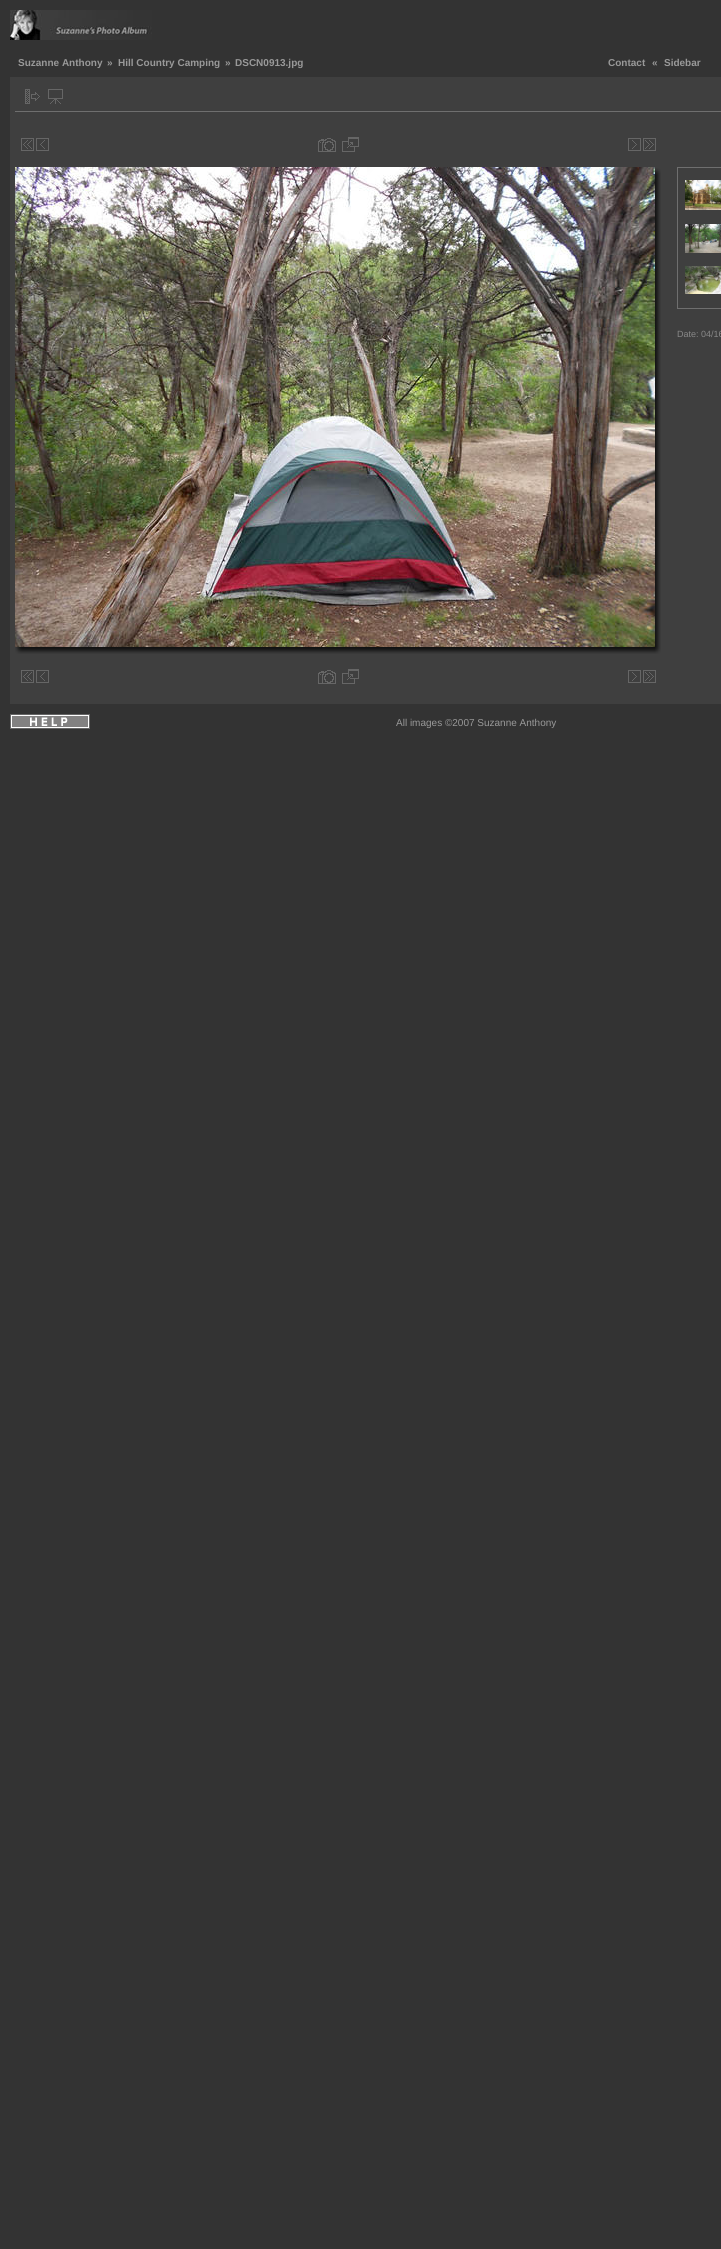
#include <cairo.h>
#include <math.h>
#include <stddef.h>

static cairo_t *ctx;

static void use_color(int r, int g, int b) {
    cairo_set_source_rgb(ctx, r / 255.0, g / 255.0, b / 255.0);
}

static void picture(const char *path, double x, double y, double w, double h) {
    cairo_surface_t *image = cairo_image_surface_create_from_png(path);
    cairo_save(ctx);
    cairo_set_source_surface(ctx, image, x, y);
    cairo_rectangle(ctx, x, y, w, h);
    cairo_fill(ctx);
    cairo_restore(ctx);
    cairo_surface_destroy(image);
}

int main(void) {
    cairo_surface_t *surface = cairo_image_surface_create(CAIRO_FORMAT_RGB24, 721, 2249);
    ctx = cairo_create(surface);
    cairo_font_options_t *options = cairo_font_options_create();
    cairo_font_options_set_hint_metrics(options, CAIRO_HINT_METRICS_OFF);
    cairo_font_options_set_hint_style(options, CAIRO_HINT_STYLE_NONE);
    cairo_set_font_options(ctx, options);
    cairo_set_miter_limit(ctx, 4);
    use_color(51, 51, 51);
    cairo_paint(ctx);
    picture("img1.png", 10, 10, 142, 30);
    cairo_select_font_face(ctx, "Liberation Sans", CAIRO_FONT_SLANT_NORMAL, CAIRO_FONT_WEIGHT_BOLD);
    cairo_set_font_size(ctx, 10);
    use_color(153, 153, 153);
    cairo_move_to(ctx, 18, 66);
    cairo_show_text(ctx, "Suzanne Anthony");
    cairo_move_to(ctx, 107, 66);
    cairo_show_text(ctx, "»");
    cairo_move_to(ctx, 118, 66);
    cairo_show_text(ctx, "Hill Country Camping");
    cairo_move_to(ctx, 225, 66);
    cairo_show_text(ctx, "»");
    cairo_move_to(ctx, 235, 66);
    cairo_show_text(ctx, "DSCN0913.jpg");
    cairo_move_to(ctx, 608, 66);
    cairo_show_text(ctx, "Contact");
    cairo_move_to(ctx, 652, 66);
    cairo_show_text(ctx, "«");
    cairo_move_to(ctx, 664, 66);
    cairo_show_text(ctx, "Sidebar");
    use_color(63, 63, 63);
    cairo_rectangle(ctx, 10, 77, 711, 627);
    cairo_fill(ctx);
    use_color(111, 111, 111);
    cairo_rectangle(ctx, 15, 111, 706, 1);
    cairo_fill(ctx);
    picture("img2.png", 25, 89, 15, 15);
    picture("img3.png", 48, 89, 15, 15);
    picture("img4.png", 21, 138, 13, 13);
    picture("img5.png", 36, 138, 13, 13);
    picture("img6.png", 318, 138, 18, 14);
    picture("img7.png", 342, 137, 17, 15);
    picture("img8.png", 628, 138, 13, 13);
    picture("img9.png", 643, 138, 13, 13);
    picture("img10.png", 15, 167, 640, 480);
    picture("img11.png", 655, 168, 6, 9);
    picture("img12.png", 655, 177, 6, 470);
    picture("img13.png", 15, 647, 9, 7);
    picture("img14.png", 24, 647, 631, 7);
    picture("img15.png", 655, 647, 6, 7);
    cairo_rectangle(ctx, 677.5, 167.5, 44, 141);
    cairo_set_line_width(ctx, 1);
    cairo_stroke(ctx);
    picture("img16.png", 685, 180, 36, 30);
    picture("img17.png", 685, 224, 36, 29);
    picture("img18.png", 685, 266, 36, 28);
    cairo_select_font_face(ctx, "Liberation Sans", CAIRO_FONT_SLANT_NORMAL, CAIRO_FONT_WEIGHT_NORMAL);
    cairo_set_font_size(ctx, 9);
    use_color(136, 136, 136);
    cairo_move_to(ctx, 677, 337);
    cairo_show_text(ctx, "Date: 04/16");
    picture("img4.png", 21, 670, 13, 13);
    picture("img5.png", 36, 670, 13, 13);
    picture("img6.png", 318, 670, 18, 14);
    picture("img7.png", 342, 669, 17, 15);
    picture("img8.png", 628, 670, 13, 13);
    picture("img9.png", 643, 670, 13, 13);
    picture("img19.png", 10, 714, 80, 15);
    cairo_set_font_size(ctx, 10);
    use_color(153, 153, 153);
    cairo_move_to(ctx, 396, 726);
    cairo_show_text(ctx, "All images ©2007 Suzanne Anthony");
    cairo_surface_write_to_png(surface, "result.png");
    cairo_font_options_destroy(options);
    cairo_destroy(ctx);
    cairo_surface_destroy(surface);
    return 0;
}
